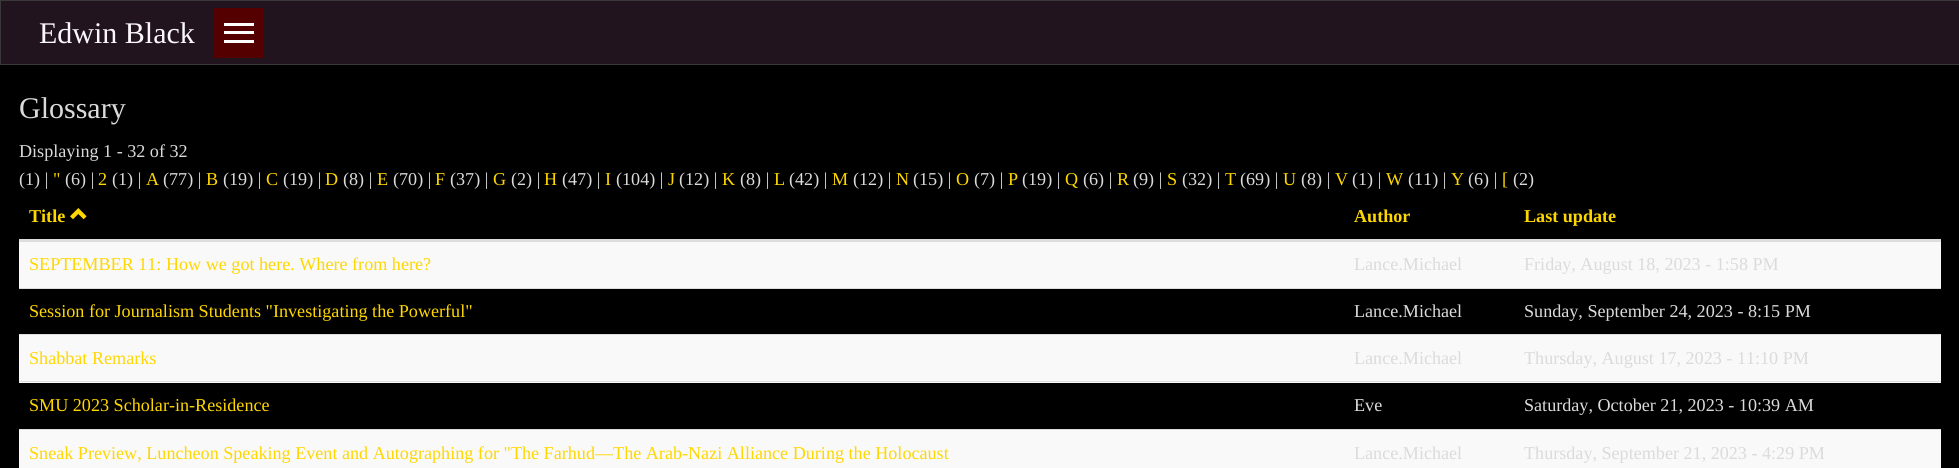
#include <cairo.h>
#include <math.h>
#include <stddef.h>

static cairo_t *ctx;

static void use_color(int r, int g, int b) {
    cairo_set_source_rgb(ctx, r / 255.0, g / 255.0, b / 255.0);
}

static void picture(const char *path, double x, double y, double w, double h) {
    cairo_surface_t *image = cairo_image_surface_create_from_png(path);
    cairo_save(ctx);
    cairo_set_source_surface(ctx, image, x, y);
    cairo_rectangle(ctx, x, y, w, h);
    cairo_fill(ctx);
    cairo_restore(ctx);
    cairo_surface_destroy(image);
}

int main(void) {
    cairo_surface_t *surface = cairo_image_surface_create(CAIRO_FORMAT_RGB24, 1959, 468);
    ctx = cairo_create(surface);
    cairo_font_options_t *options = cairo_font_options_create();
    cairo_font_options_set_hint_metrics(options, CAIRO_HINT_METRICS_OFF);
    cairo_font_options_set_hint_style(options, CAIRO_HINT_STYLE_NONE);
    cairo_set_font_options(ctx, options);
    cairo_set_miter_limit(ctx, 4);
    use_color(0, 0, 0);
    cairo_paint(ctx);
    use_color(33, 20, 30);
    cairo_rectangle(ctx, 0.5, 0.5, 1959, 64);
    cairo_fill_preserve(ctx);
    use_color(58, 57, 58);
    cairo_set_line_width(ctx, 1);
    cairo_stroke(ctx);
    cairo_select_font_face(ctx, "Liberation Serif", CAIRO_FONT_SLANT_NORMAL, CAIRO_FONT_WEIGHT_NORMAL);
    cairo_set_font_size(ctx, 30);
    use_color(251, 247, 253);
    cairo_move_to(ctx, 39, 43);
    cairo_show_text(ctx, "Edwin Black");
    use_color(85, 0, 0);
    cairo_rectangle(ctx, 214, 8, 50, 50);
    cairo_fill(ctx);
    use_color(255, 255, 255);
    cairo_rectangle(ctx, 224, 23, 30, 3);
    cairo_fill(ctx);
    cairo_rectangle(ctx, 224, 31, 30, 3);
    cairo_fill(ctx);
    cairo_rectangle(ctx, 224, 40, 30, 3);
    cairo_fill(ctx);
    use_color(219, 219, 219);
    cairo_move_to(ctx, 19, 118);
    cairo_show_text(ctx, "Glossary");
    cairo_set_font_size(ctx, 18.12);
    cairo_move_to(ctx, 19, 157);
    cairo_show_text(ctx, "Displaying 1 - 32 of 32");
    cairo_move_to(ctx, 19, 185);
    cairo_show_text(ctx, "(1) |");
    use_color(255, 215, 0);
    cairo_move_to(ctx, 53, 185);
    cairo_show_text(ctx, "\"");
    use_color(219, 219, 219);
    cairo_move_to(ctx, 65, 185);
    cairo_show_text(ctx, "(6) |");
    use_color(255, 215, 0);
    cairo_move_to(ctx, 98, 185);
    cairo_show_text(ctx, "2");
    use_color(219, 219, 219);
    cairo_move_to(ctx, 112, 185);
    cairo_show_text(ctx, "(1) |");
    use_color(255, 215, 0);
    cairo_move_to(ctx, 146, 185);
    cairo_show_text(ctx, "A");
    use_color(219, 219, 219);
    cairo_move_to(ctx, 163, 185);
    cairo_show_text(ctx, "(77) |");
    use_color(255, 215, 0);
    cairo_move_to(ctx, 206, 185);
    cairo_show_text(ctx, "B");
    use_color(219, 219, 219);
    cairo_move_to(ctx, 223, 185);
    cairo_show_text(ctx, "(19) |");
    use_color(255, 215, 0);
    cairo_move_to(ctx, 266, 185);
    cairo_show_text(ctx, "C");
    use_color(219, 219, 219);
    cairo_move_to(ctx, 283, 185);
    cairo_show_text(ctx, "(19) |");
    use_color(255, 215, 0);
    cairo_move_to(ctx, 325, 185);
    cairo_show_text(ctx, "D");
    use_color(219, 219, 219);
    cairo_move_to(ctx, 343, 185);
    cairo_show_text(ctx, "(8) |");
    use_color(255, 215, 0);
    cairo_move_to(ctx, 377, 185);
    cairo_show_text(ctx, "E");
    use_color(219, 219, 219);
    cairo_move_to(ctx, 393, 185);
    cairo_show_text(ctx, "(70) |");
    use_color(255, 215, 0);
    cairo_move_to(ctx, 435, 185);
    cairo_show_text(ctx, "F");
    use_color(219, 219, 219);
    cairo_move_to(ctx, 450, 185);
    cairo_show_text(ctx, "(37) |");
    use_color(255, 215, 0);
    cairo_move_to(ctx, 493, 185);
    cairo_show_text(ctx, "G");
    use_color(219, 219, 219);
    cairo_move_to(ctx, 511, 185);
    cairo_show_text(ctx, "(2) |");
    use_color(255, 215, 0);
    cairo_move_to(ctx, 544, 185);
    cairo_show_text(ctx, "H");
    use_color(219, 219, 219);
    cairo_move_to(ctx, 562, 185);
    cairo_show_text(ctx, "(47) |");
    use_color(255, 215, 0);
    cairo_move_to(ctx, 605, 185);
    cairo_show_text(ctx, "I");
    use_color(219, 219, 219);
    cairo_move_to(ctx, 616, 185);
    cairo_show_text(ctx, "(104) |");
    use_color(255, 215, 0);
    cairo_move_to(ctx, 668, 185);
    cairo_show_text(ctx, "J");
    use_color(219, 219, 219);
    cairo_move_to(ctx, 679, 185);
    cairo_show_text(ctx, "(12) |");
    use_color(255, 215, 0);
    cairo_move_to(ctx, 722, 185);
    cairo_show_text(ctx, "K");
    use_color(219, 219, 219);
    cairo_move_to(ctx, 740, 185);
    cairo_show_text(ctx, "(8) |");
    use_color(255, 215, 0);
    cairo_move_to(ctx, 774, 185);
    cairo_show_text(ctx, "L");
    use_color(219, 219, 219);
    cairo_move_to(ctx, 789, 185);
    cairo_show_text(ctx, "(42) |");
    use_color(255, 215, 0);
    cairo_move_to(ctx, 832, 185);
    cairo_show_text(ctx, "M");
    use_color(219, 219, 219);
    cairo_move_to(ctx, 853, 185);
    cairo_show_text(ctx, "(12) |");
    use_color(255, 215, 0);
    cairo_move_to(ctx, 896, 185);
    cairo_show_text(ctx, "N");
    use_color(219, 219, 219);
    cairo_move_to(ctx, 913, 185);
    cairo_show_text(ctx, "(15) |");
    use_color(255, 215, 0);
    cairo_move_to(ctx, 956, 185);
    cairo_show_text(ctx, "O");
    use_color(219, 219, 219);
    cairo_move_to(ctx, 974, 185);
    cairo_show_text(ctx, "(7) |");
    use_color(255, 215, 0);
    cairo_move_to(ctx, 1008, 185);
    cairo_show_text(ctx, "P");
    use_color(219, 219, 219);
    cairo_move_to(ctx, 1022, 185);
    cairo_show_text(ctx, "(19) |");
    use_color(255, 215, 0);
    cairo_move_to(ctx, 1065, 185);
    cairo_show_text(ctx, "Q");
    use_color(219, 219, 219);
    cairo_move_to(ctx, 1083, 185);
    cairo_show_text(ctx, "(6) |");
    use_color(255, 215, 0);
    cairo_move_to(ctx, 1117, 185);
    cairo_show_text(ctx, "R");
    use_color(219, 219, 219);
    cairo_move_to(ctx, 1133, 185);
    cairo_show_text(ctx, "(9) |");
    use_color(255, 215, 0);
    cairo_move_to(ctx, 1167, 185);
    cairo_show_text(ctx, "S");
    use_color(219, 219, 219);
    cairo_move_to(ctx, 1182, 185);
    cairo_show_text(ctx, "(32) |");
    use_color(255, 215, 0);
    cairo_move_to(ctx, 1225, 185);
    cairo_show_text(ctx, "T");
    use_color(219, 219, 219);
    cairo_move_to(ctx, 1240, 185);
    cairo_show_text(ctx, "(69) |");
    use_color(255, 215, 0);
    cairo_move_to(ctx, 1283, 185);
    cairo_show_text(ctx, "U");
    use_color(219, 219, 219);
    cairo_move_to(ctx, 1301, 185);
    cairo_show_text(ctx, "(8) |");
    use_color(255, 215, 0);
    cairo_move_to(ctx, 1335, 185);
    cairo_show_text(ctx, "V");
    use_color(219, 219, 219);
    cairo_move_to(ctx, 1352, 185);
    cairo_show_text(ctx, "(1) |");
    use_color(255, 215, 0);
    cairo_move_to(ctx, 1386, 185);
    cairo_show_text(ctx, "W");
    use_color(219, 219, 219);
    cairo_move_to(ctx, 1408, 185);
    cairo_show_text(ctx, "(11) |");
    use_color(255, 215, 0);
    cairo_move_to(ctx, 1451, 185);
    cairo_show_text(ctx, "Y");
    use_color(219, 219, 219);
    cairo_move_to(ctx, 1468, 185);
    cairo_show_text(ctx, "(6) |");
    use_color(255, 215, 0);
    cairo_move_to(ctx, 1502, 185);
    cairo_show_text(ctx, "[");
    use_color(219, 219, 219);
    cairo_move_to(ctx, 1513, 185);
    cairo_show_text(ctx, "(2)");
    cairo_select_font_face(ctx, "Liberation Serif", CAIRO_FONT_SLANT_NORMAL, CAIRO_FONT_WEIGHT_BOLD);
    use_color(255, 215, 0);
    cairo_move_to(ctx, 29, 222);
    cairo_show_text(ctx, "Title");
    picture("img1.png", 70, 208, 17, 12);
    cairo_move_to(ctx, 1354, 222);
    cairo_show_text(ctx, "Author");
    use_color(221, 221, 221);
    cairo_rectangle(ctx, 19, 239, 1922, 3);
    cairo_fill(ctx);
    use_color(255, 215, 0);
    cairo_move_to(ctx, 1524, 222);
    cairo_show_text(ctx, "Last update");
    use_color(249, 249, 249);
    cairo_rectangle(ctx, 19, 242, 1922, 46);
    cairo_fill(ctx);
    cairo_select_font_face(ctx, "Liberation Serif", CAIRO_FONT_SLANT_NORMAL, CAIRO_FONT_WEIGHT_NORMAL);
    use_color(255, 215, 0);
    cairo_move_to(ctx, 29, 270);
    cairo_show_text(ctx, "SEPTEMBER 11: How we got here. Where from here?");
    use_color(219, 219, 219);
    cairo_move_to(ctx, 1354, 270);
    cairo_show_text(ctx, "Lance.Michael");
    cairo_move_to(ctx, 1524, 270);
    cairo_show_text(ctx, "Friday, August 18, 2023 - 1:58 PM");
    use_color(255, 215, 0);
    cairo_move_to(ctx, 29, 317);
    cairo_show_text(ctx, "Session for Journalism Students \"Investigating the Powerful\"");
    use_color(219, 219, 219);
    cairo_move_to(ctx, 1354, 317);
    cairo_show_text(ctx, "Lance.Michael");
    use_color(221, 221, 221);
    cairo_rectangle(ctx, 19, 288, 1922, 1);
    cairo_fill(ctx);
    use_color(219, 219, 219);
    cairo_move_to(ctx, 1524, 317);
    cairo_show_text(ctx, "Sunday, September 24, 2023 - 8:15 PM");
    use_color(249, 249, 249);
    cairo_rectangle(ctx, 19, 335, 1922, 48);
    cairo_fill(ctx);
    use_color(255, 215, 0);
    cairo_move_to(ctx, 29, 364);
    cairo_show_text(ctx, "Shabbat Remarks");
    use_color(219, 219, 219);
    cairo_move_to(ctx, 1354, 364);
    cairo_show_text(ctx, "Lance.Michael");
    use_color(221, 221, 221);
    cairo_rectangle(ctx, 19, 334, 1922, 1);
    cairo_fill(ctx);
    use_color(219, 219, 219);
    cairo_move_to(ctx, 1524, 364);
    cairo_show_text(ctx, "Thursday, August 17, 2023 - 11:10 PM");
    use_color(255, 215, 0);
    cairo_move_to(ctx, 29, 411);
    cairo_show_text(ctx, "SMU 2023 Scholar-in-Residence");
    use_color(219, 219, 219);
    cairo_move_to(ctx, 1354, 411);
    cairo_show_text(ctx, "Eve");
    use_color(221, 221, 221);
    cairo_rectangle(ctx, 19, 381, 1922, 1);
    cairo_fill(ctx);
    use_color(219, 219, 219);
    cairo_move_to(ctx, 1524, 411);
    cairo_show_text(ctx, "Saturday, October 21, 2023 - 10:39 AM");
    use_color(249, 249, 249);
    cairo_rectangle(ctx, 19, 430, 1922, 38);
    cairo_fill(ctx);
    use_color(255, 215, 0);
    cairo_move_to(ctx, 29, 459);
    cairo_show_text(ctx, "Sneak Preview, Luncheon Speaking Event and Autographing for \"The Farhud—The Arab-Nazi Alliance During the Holocaust");
    use_color(219, 219, 219);
    cairo_move_to(ctx, 1354, 459);
    cairo_show_text(ctx, "Lance.Michael");
    use_color(221, 221, 221);
    cairo_rectangle(ctx, 19, 429, 1922, 1);
    cairo_fill(ctx);
    use_color(219, 219, 219);
    cairo_move_to(ctx, 1524, 459);
    cairo_show_text(ctx, "Thursday, September 21, 2023 - 4:29 PM");
    cairo_surface_write_to_png(surface, "result.png");
    cairo_font_options_destroy(options);
    cairo_destroy(ctx);
    cairo_surface_destroy(surface);
    return 0;
}
